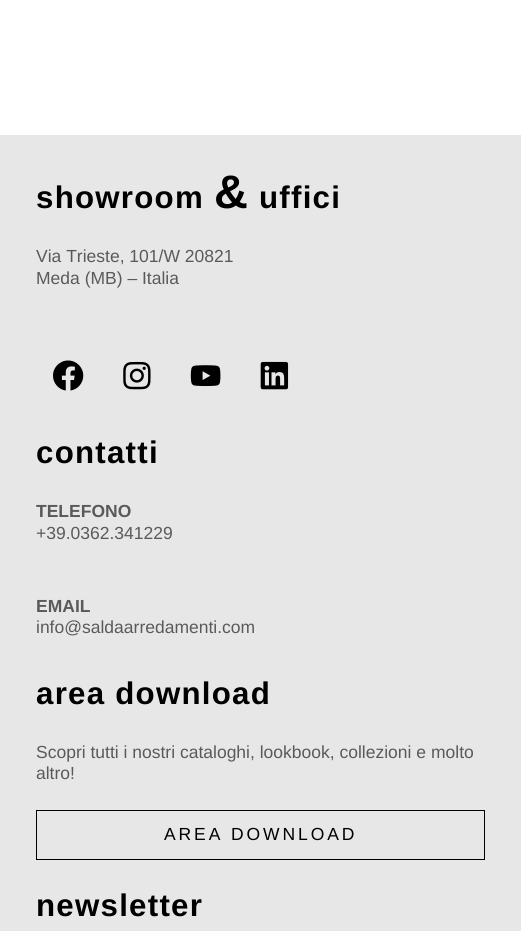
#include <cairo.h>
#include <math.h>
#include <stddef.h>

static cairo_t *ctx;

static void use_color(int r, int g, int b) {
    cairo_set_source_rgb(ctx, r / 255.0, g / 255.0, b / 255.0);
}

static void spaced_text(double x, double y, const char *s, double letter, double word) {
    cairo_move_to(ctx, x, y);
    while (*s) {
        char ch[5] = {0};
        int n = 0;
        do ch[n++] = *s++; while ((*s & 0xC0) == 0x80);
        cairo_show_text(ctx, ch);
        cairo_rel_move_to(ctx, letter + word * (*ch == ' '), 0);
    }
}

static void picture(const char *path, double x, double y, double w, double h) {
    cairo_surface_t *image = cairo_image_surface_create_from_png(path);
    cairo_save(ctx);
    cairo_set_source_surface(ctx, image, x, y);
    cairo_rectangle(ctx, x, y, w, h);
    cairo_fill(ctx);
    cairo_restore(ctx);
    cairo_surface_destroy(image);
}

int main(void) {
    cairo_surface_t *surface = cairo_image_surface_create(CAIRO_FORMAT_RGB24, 521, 931);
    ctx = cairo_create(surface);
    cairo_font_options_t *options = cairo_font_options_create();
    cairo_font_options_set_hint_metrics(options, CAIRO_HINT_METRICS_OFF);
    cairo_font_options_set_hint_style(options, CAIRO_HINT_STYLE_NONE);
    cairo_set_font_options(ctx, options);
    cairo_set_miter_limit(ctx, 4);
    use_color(255, 255, 255);
    cairo_paint(ctx);
    use_color(231, 231, 231);
    cairo_rectangle(ctx, 0, 135, 521, 796);
    cairo_fill(ctx);
    cairo_select_font_face(ctx, "Liberation Sans", CAIRO_FONT_SLANT_NORMAL, CAIRO_FONT_WEIGHT_BOLD);
    cairo_set_font_size(ctx, 31.25);
    use_color(0, 0, 0);
    spaced_text(36, 208, "showroom", 1.25, 0);
    cairo_set_font_size(ctx, 47);
    spaced_text(214, 208, "&", 1.25, 0);
    cairo_set_font_size(ctx, 31.25);
    spaced_text(259, 208, "uffici", 1.25, 0);
    cairo_select_font_face(ctx, "Liberation Sans", CAIRO_FONT_SLANT_NORMAL, CAIRO_FONT_WEIGHT_NORMAL);
    cairo_set_font_size(ctx, 17.5);
    use_color(90, 90, 90);
    cairo_move_to(ctx, 36, 262);
    cairo_show_text(ctx, "Via Trieste, 101/W 20821");
    cairo_move_to(ctx, 36, 284);
    cairo_show_text(ctx, "Meda (MB) – Italia");
    picture("img1.png", 53, 360, 31, 31);
    picture("img2.png", 123, 361, 28, 29);
    picture("img3.png", 190, 365, 31, 22);
    picture("img4.png", 260, 361, 29, 29);
    cairo_select_font_face(ctx, "Liberation Sans", CAIRO_FONT_SLANT_NORMAL, CAIRO_FONT_WEIGHT_BOLD);
    cairo_set_font_size(ctx, 31.25);
    use_color(0, 0, 0);
    spaced_text(36, 463, "contatti", 1.25, 0);
    cairo_set_font_size(ctx, 17.5);
    use_color(90, 90, 90);
    cairo_move_to(ctx, 36, 517);
    cairo_show_text(ctx, "TELEFONO");
    cairo_select_font_face(ctx, "Liberation Sans", CAIRO_FONT_SLANT_NORMAL, CAIRO_FONT_WEIGHT_NORMAL);
    cairo_move_to(ctx, 36, 539);
    cairo_show_text(ctx, "+39.0362.341229");
    cairo_select_font_face(ctx, "Liberation Sans", CAIRO_FONT_SLANT_NORMAL, CAIRO_FONT_WEIGHT_BOLD);
    cairo_move_to(ctx, 36, 612);
    cairo_show_text(ctx, "EMAIL");
    cairo_select_font_face(ctx, "Liberation Sans", CAIRO_FONT_SLANT_NORMAL, CAIRO_FONT_WEIGHT_NORMAL);
    cairo_move_to(ctx, 36, 633);
    cairo_show_text(ctx, "info@saldaarredamenti.com");
    cairo_select_font_face(ctx, "Liberation Sans", CAIRO_FONT_SLANT_NORMAL, CAIRO_FONT_WEIGHT_BOLD);
    cairo_set_font_size(ctx, 31.25);
    use_color(0, 0, 0);
    spaced_text(36, 704, "area download", 1.25, 0);
    cairo_select_font_face(ctx, "Liberation Sans", CAIRO_FONT_SLANT_NORMAL, CAIRO_FONT_WEIGHT_NORMAL);
    cairo_set_font_size(ctx, 17.5);
    use_color(90, 90, 90);
    cairo_move_to(ctx, 36, 758);
    cairo_show_text(ctx, "Scopri tutti i nostri cataloghi, lookbook, collezioni e molto");
    cairo_move_to(ctx, 36, 779);
    cairo_show_text(ctx, "altro!");
    cairo_rectangle(ctx, 36.5, 810.5, 448, 49);
    use_color(0, 0, 0);
    cairo_set_line_width(ctx, 1);
    cairo_stroke(ctx);
    spaced_text(164, 840, "AREA DOWNLOAD", 2.9, 0);
    cairo_select_font_face(ctx, "Liberation Sans", CAIRO_FONT_SLANT_NORMAL, CAIRO_FONT_WEIGHT_BOLD);
    cairo_set_font_size(ctx, 31.25);
    spaced_text(36, 916, "newsletter", 1.25, 0);
    cairo_surface_write_to_png(surface, "result.png");
    cairo_font_options_destroy(options);
    cairo_destroy(ctx);
    cairo_surface_destroy(surface);
    return 0;
}
